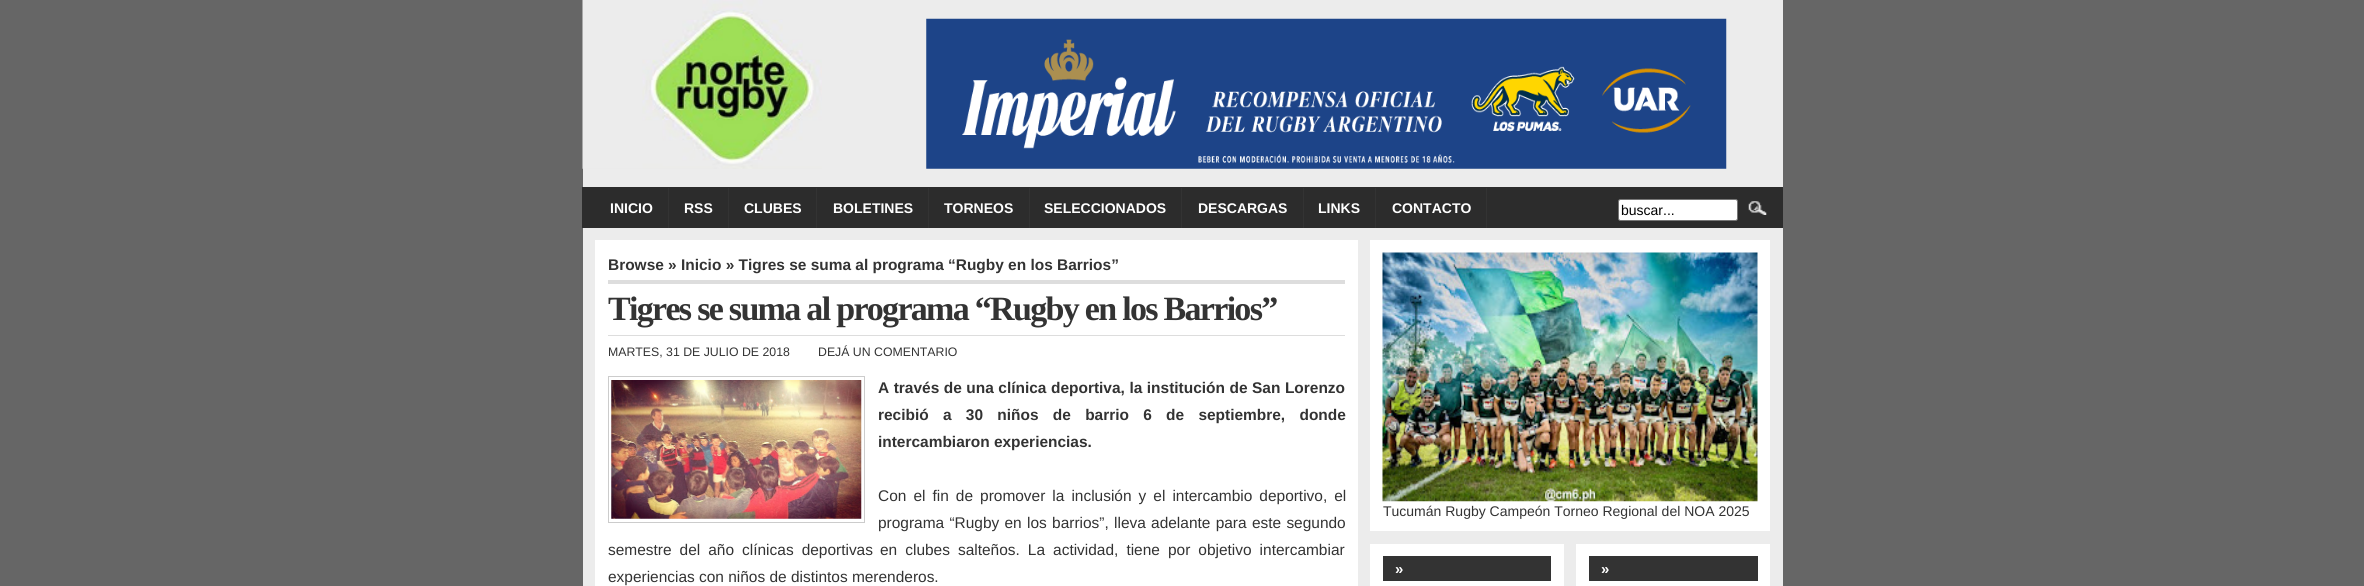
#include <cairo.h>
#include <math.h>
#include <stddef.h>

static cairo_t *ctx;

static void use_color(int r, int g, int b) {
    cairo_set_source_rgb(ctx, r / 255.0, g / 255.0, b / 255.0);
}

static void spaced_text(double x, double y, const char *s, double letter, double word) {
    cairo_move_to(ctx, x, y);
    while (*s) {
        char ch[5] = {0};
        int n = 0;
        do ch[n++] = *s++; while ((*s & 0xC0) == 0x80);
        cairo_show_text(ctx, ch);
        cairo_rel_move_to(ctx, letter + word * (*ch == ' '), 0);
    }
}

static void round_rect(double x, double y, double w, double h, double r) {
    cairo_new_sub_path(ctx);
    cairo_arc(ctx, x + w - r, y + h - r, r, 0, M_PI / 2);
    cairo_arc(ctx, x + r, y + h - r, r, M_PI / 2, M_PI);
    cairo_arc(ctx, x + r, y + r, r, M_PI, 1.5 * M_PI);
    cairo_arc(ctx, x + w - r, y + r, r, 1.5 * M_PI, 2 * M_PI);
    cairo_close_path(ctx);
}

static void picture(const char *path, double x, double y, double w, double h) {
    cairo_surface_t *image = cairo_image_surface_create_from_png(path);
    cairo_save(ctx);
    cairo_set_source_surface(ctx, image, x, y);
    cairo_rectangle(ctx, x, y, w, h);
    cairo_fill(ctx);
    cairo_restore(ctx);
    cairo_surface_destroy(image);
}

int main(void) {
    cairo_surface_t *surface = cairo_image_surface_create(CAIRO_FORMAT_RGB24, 2364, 586);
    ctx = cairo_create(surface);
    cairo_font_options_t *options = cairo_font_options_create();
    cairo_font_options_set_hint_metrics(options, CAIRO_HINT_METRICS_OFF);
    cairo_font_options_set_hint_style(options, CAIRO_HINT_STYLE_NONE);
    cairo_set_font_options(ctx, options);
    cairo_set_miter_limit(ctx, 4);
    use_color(102, 102, 102);
    cairo_paint(ctx);
    use_color(236, 236, 236);
    cairo_rectangle(ctx, 583, 0, 1200, 187);
    cairo_fill(ctx);
    picture("img1.png", 582, 0, 240, 169);
    picture("img2.png", 926, 18, 801, 151);
    use_color(44, 44, 44);
    cairo_rectangle(ctx, 582, 187, 1201, 41);
    cairo_fill(ctx);
    use_color(51, 51, 51);
    cairo_rectangle(ctx, 668, 188, 1, 40);
    cairo_fill(ctx);
    cairo_select_font_face(ctx, "Liberation Sans", CAIRO_FONT_SLANT_NORMAL, CAIRO_FONT_WEIGHT_BOLD);
    cairo_set_font_size(ctx, 14);
    use_color(255, 255, 255);
    cairo_move_to(ctx, 610, 213);
    cairo_show_text(ctx, "INICIO");
    use_color(51, 51, 51);
    cairo_rectangle(ctx, 728, 188, 1, 40);
    cairo_fill(ctx);
    use_color(255, 255, 255);
    cairo_move_to(ctx, 684, 213);
    cairo_show_text(ctx, "RSS");
    use_color(51, 51, 51);
    cairo_rectangle(ctx, 816, 188, 1, 40);
    cairo_fill(ctx);
    use_color(255, 255, 255);
    cairo_move_to(ctx, 744, 213);
    cairo_show_text(ctx, "CLUBES");
    use_color(51, 51, 51);
    cairo_rectangle(ctx, 928, 188, 1, 40);
    cairo_fill(ctx);
    use_color(255, 255, 255);
    cairo_move_to(ctx, 833, 213);
    cairo_show_text(ctx, "BOLETINES");
    use_color(51, 51, 51);
    cairo_rectangle(ctx, 1029, 188, 1, 40);
    cairo_fill(ctx);
    use_color(255, 255, 255);
    cairo_move_to(ctx, 944, 213);
    cairo_show_text(ctx, "TORNEOS");
    use_color(51, 51, 51);
    cairo_rectangle(ctx, 1181, 188, 1, 40);
    cairo_fill(ctx);
    use_color(255, 255, 255);
    cairo_move_to(ctx, 1044, 213);
    cairo_show_text(ctx, "SELECCIONADOS");
    use_color(51, 51, 51);
    cairo_rectangle(ctx, 1303, 188, 1, 40);
    cairo_fill(ctx);
    use_color(255, 255, 255);
    cairo_move_to(ctx, 1198, 213);
    cairo_show_text(ctx, "DESCARGAS");
    use_color(51, 51, 51);
    cairo_rectangle(ctx, 1375, 188, 1, 40);
    cairo_fill(ctx);
    use_color(255, 255, 255);
    cairo_move_to(ctx, 1318, 213);
    cairo_show_text(ctx, "LINKS");
    use_color(51, 51, 51);
    cairo_rectangle(ctx, 1486, 188, 1, 40);
    cairo_fill(ctx);
    use_color(255, 255, 255);
    cairo_move_to(ctx, 1392, 213);
    cairo_show_text(ctx, "CONTACTO");
    round_rect(1618.5, 199.5, 119, 21, 2);
    cairo_fill_preserve(ctx);
    use_color(118, 118, 118);
    cairo_set_line_width(ctx, 1);
    cairo_stroke(ctx);
    cairo_select_font_face(ctx, "Liberation Sans", CAIRO_FONT_SLANT_NORMAL, CAIRO_FONT_WEIGHT_NORMAL);
    use_color(0, 0, 0);
    cairo_move_to(ctx, 1621, 215);
    cairo_show_text(ctx, "buscar...");
    picture("img3.png", 1748, 201, 19, 14);
    use_color(236, 236, 236);
    cairo_rectangle(ctx, 583, 228, 1200, 358);
    cairo_fill(ctx);
    use_color(255, 255, 255);
    cairo_rectangle(ctx, 595, 240, 763, 346);
    cairo_fill(ctx);
    cairo_select_font_face(ctx, "Liberation Sans", CAIRO_FONT_SLANT_NORMAL, CAIRO_FONT_WEIGHT_BOLD);
    cairo_set_font_size(ctx, 15.45);
    use_color(51, 51, 51);
    cairo_move_to(ctx, 608, 270);
    cairo_show_text(ctx, "Browse » Inicio » Tigres se suma al programa “Rugby en los Barrios”");
    use_color(221, 221, 221);
    cairo_rectangle(ctx, 608, 280, 737, 4);
    cairo_fill(ctx);
    cairo_rectangle(ctx, 608, 335, 737, 1);
    cairo_fill(ctx);
    cairo_select_font_face(ctx, "Liberation Serif", CAIRO_FONT_SLANT_NORMAL, CAIRO_FONT_WEIGHT_BOLD);
    cairo_set_font_size(ctx, 34);
    use_color(51, 51, 51);
    spaced_text(608, 320, "Tigres se suma al programa “Rugby en los Barrios”", -1.7, 0);
    cairo_select_font_face(ctx, "Liberation Sans", CAIRO_FONT_SLANT_NORMAL, CAIRO_FONT_WEIGHT_NORMAL);
    cairo_set_font_size(ctx, 12.3);
    cairo_move_to(ctx, 608, 356);
    cairo_show_text(ctx, "MARTES, 31 DE JULIO DE 2018");
    cairo_move_to(ctx, 818, 356);
    cairo_show_text(ctx, "DEJÁ UN COMENTARIO");
    cairo_rectangle(ctx, 608.5, 376.5, 256, 146);
    use_color(204, 204, 204);
    cairo_stroke(ctx);
    picture("img4.png", 611, 380, 251, 139);
    cairo_select_font_face(ctx, "Liberation Sans", CAIRO_FONT_SLANT_NORMAL, CAIRO_FONT_WEIGHT_BOLD);
    cairo_set_font_size(ctx, 15.45);
    use_color(51, 51, 51);
    spaced_text(878, 393, "A través de una clínica deportiva, la institución de San Lorenzo", 0, 0.25);
    spaced_text(878, 420, "recibió a 30 niños de barrio 6 de septiembre, donde", 0, 10);
    cairo_move_to(ctx, 878, 447);
    cairo_show_text(ctx, "intercambiaron experiencias.");
    cairo_select_font_face(ctx, "Liberation Sans", CAIRO_FONT_SLANT_NORMAL, CAIRO_FONT_WEIGHT_NORMAL);
    spaced_text(878, 501, "Con el fin de promover la inclusión y el intercambio deportivo, el", 0, 2.75);
    spaced_text(878, 528, "programa “Rugby en los barrios”, lleva adelante para este segundo", 0, 1);
    spaced_text(608, 555, "semestre del año clínicas deportivas", 0, 3.75);
    spaced_text(880, 555, "en clubes salteños. La actividad, tiene por objetivo intercambiar", 0, 3.75);
    cairo_move_to(ctx, 608, 582);
    cairo_show_text(ctx, "experiencias con niños de distintos merenderos.");
    use_color(255, 255, 255);
    cairo_rectangle(ctx, 1370, 240, 400, 291);
    cairo_fill(ctx);
    picture("img5.png", 1382, 252, 376, 250);
    cairo_set_font_size(ctx, 14);
    use_color(51, 51, 51);
    cairo_move_to(ctx, 1383, 516);
    cairo_show_text(ctx, "Tucumán Rugby Campeón Torneo Regional del NOA 2025");
    use_color(255, 255, 255);
    cairo_rectangle(ctx, 1370, 544, 194, 42);
    cairo_fill(ctx);
    use_color(51, 51, 51);
    cairo_rectangle(ctx, 1383, 556, 168, 25);
    cairo_fill(ctx);
    cairo_select_font_face(ctx, "Liberation Sans", CAIRO_FONT_SLANT_NORMAL, CAIRO_FONT_WEIGHT_BOLD);
    cairo_set_font_size(ctx, 15);
    use_color(255, 255, 255);
    cairo_move_to(ctx, 1395, 574);
    cairo_show_text(ctx, "»");
    cairo_rectangle(ctx, 1576, 544, 194, 42);
    cairo_fill(ctx);
    use_color(51, 51, 51);
    cairo_rectangle(ctx, 1589, 556, 169, 25);
    cairo_fill(ctx);
    use_color(255, 255, 255);
    cairo_move_to(ctx, 1601, 574);
    cairo_show_text(ctx, "»");
    cairo_surface_write_to_png(surface, "result.png");
    cairo_font_options_destroy(options);
    cairo_destroy(ctx);
    cairo_surface_destroy(surface);
    return 0;
}
